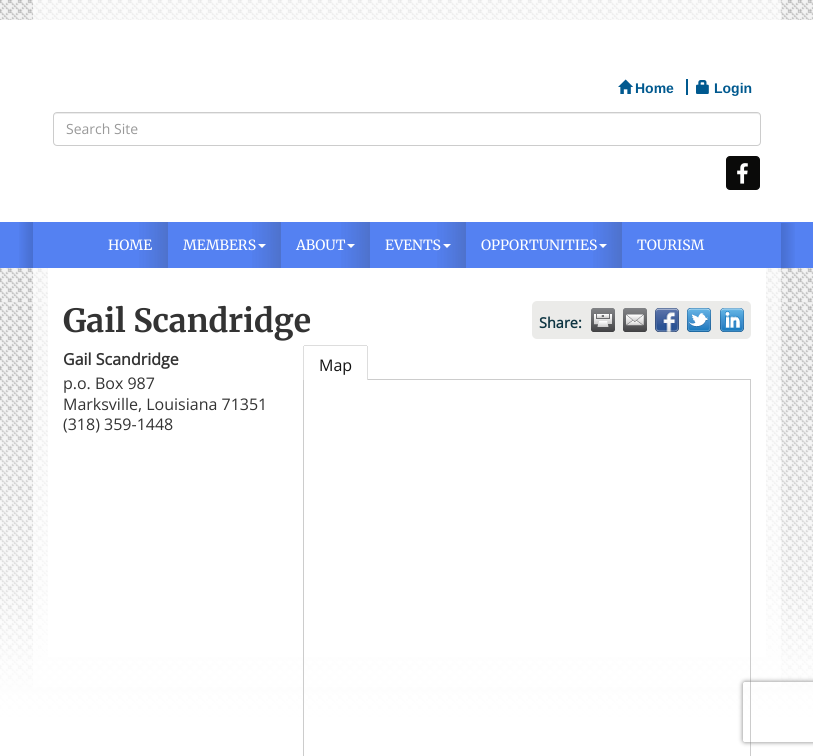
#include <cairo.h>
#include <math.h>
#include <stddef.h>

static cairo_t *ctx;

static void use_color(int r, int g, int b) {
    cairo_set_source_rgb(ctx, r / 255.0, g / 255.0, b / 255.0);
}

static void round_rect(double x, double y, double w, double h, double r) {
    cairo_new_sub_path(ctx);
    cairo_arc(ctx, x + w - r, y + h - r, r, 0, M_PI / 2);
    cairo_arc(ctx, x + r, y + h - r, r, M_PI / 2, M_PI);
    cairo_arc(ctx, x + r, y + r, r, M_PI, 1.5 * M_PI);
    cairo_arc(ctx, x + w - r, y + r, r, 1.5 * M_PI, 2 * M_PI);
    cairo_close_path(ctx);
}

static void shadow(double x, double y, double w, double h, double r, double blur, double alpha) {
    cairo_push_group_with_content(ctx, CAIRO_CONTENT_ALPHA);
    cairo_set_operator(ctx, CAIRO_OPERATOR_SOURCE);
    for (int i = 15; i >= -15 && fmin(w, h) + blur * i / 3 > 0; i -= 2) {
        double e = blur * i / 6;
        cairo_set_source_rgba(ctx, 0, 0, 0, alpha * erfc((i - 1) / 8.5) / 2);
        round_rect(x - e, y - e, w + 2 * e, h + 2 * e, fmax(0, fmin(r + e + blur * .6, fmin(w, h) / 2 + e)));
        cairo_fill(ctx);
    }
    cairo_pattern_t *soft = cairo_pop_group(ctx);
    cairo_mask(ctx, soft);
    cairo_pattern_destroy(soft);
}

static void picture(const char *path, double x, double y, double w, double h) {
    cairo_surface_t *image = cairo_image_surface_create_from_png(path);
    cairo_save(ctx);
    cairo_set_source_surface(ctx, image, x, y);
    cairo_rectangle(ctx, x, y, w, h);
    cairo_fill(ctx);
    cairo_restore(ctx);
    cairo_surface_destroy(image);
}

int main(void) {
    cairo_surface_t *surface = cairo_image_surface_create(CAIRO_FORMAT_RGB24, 813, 756);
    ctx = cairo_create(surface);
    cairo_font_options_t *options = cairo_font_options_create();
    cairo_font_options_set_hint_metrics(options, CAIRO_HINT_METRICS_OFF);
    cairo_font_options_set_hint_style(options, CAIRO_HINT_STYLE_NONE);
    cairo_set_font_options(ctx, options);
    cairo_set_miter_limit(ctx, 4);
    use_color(243, 243, 243);
    cairo_paint(ctx);
    picture("img1.png", 0, 0, 813, 756);
    cairo_set_source_rgba(ctx, 1, 1, 1, 0.7);
    cairo_rectangle(ctx, 33, 0, 748, 20);
    cairo_fill(ctx);
    use_color(255, 255, 255);
    cairo_rectangle(ctx, 0, 20, 813, 202);
    cairo_fill(ctx);
    picture("img2.png", 618, 79, 15, 15);
    cairo_select_font_face(ctx, "Liberation Sans", CAIRO_FONT_SLANT_NORMAL, CAIRO_FONT_WEIGHT_BOLD);
    cairo_set_font_size(ctx, 14);
    use_color(0, 89, 143);
    cairo_move_to(ctx, 635, 93);
    cairo_show_text(ctx, "Home");
    cairo_rectangle(ctx, 686, 79, 2, 16);
    cairo_fill(ctx);
    picture("img3.png", 696, 80, 13, 14);
    cairo_move_to(ctx, 714, 93);
    cairo_show_text(ctx, "Login");
    use_color(236, 236, 236);
    cairo_new_path(ctx);
    cairo_move_to(ctx, 57, 114);
    cairo_line_to(ctx, 757, 114);
    cairo_curve_to(ctx, 759, 114, 760, 115, 760, 117);
    cairo_curve_to(ctx, 760, 115, 759, 113, 757, 113);
    cairo_line_to(ctx, 57, 113);
    cairo_curve_to(ctx, 55, 113, 54, 115, 54, 117);
    cairo_curve_to(ctx, 54, 115, 55, 114, 57, 114);
    cairo_close_path(ctx);
    cairo_fill(ctx);
    round_rect(53.5, 112.5, 707, 33, 3.5);
    use_color(204, 204, 204);
    cairo_set_line_width(ctx, 1);
    cairo_stroke(ctx);
    cairo_select_font_face(ctx, "Open Sans", CAIRO_FONT_SLANT_NORMAL, CAIRO_FONT_WEIGHT_NORMAL);
    use_color(153, 153, 153);
    cairo_move_to(ctx, 66, 134);
    cairo_show_text(ctx, "Search Site");
    use_color(10, 10, 9);
    round_rect(726.5, 156.5, 33, 33, 3.5);
    cairo_fill_preserve(ctx);
    cairo_stroke(ctx);
    picture("img4.png", 737, 163, 11, 21);
    use_color(84, 129, 242);
    cairo_rectangle(ctx, 0, 222, 813, 46);
    cairo_fill(ctx);
    picture("img5.png", 19, 222, 14, 46);
    picture("img6.png", 139, 222, 29, 46);
    cairo_select_font_face(ctx, "Merriweather", CAIRO_FONT_SLANT_NORMAL, CAIRO_FONT_WEIGHT_NORMAL);
    use_color(255, 255, 255);
    cairo_move_to(ctx, 108, 250);
    cairo_show_text(ctx, "HOME");
    picture("img6.png", 252, 222, 29, 46);
    cairo_move_to(ctx, 183, 250);
    cairo_show_text(ctx, "MEMBERS");
    cairo_new_path(ctx);
    cairo_move_to(ctx, 258, 244);
    cairo_line_to(ctx, 266, 244);
    cairo_line_to(ctx, 262, 248);
    cairo_close_path(ctx);
    cairo_fill(ctx);
    picture("img6.png", 341, 222, 29, 46);
    cairo_move_to(ctx, 296, 250);
    cairo_show_text(ctx, "ABOUT");
    cairo_new_path(ctx);
    cairo_move_to(ctx, 347, 244);
    cairo_line_to(ctx, 355, 244);
    cairo_line_to(ctx, 351, 248);
    cairo_close_path(ctx);
    cairo_fill(ctx);
    picture("img6.png", 437, 222, 29, 46);
    cairo_move_to(ctx, 385, 250);
    cairo_show_text(ctx, "EVENTS");
    cairo_new_path(ctx);
    cairo_move_to(ctx, 443, 244);
    cairo_line_to(ctx, 451, 244);
    cairo_line_to(ctx, 447, 248);
    cairo_close_path(ctx);
    cairo_fill(ctx);
    picture("img6.png", 593, 222, 29, 46);
    cairo_move_to(ctx, 481, 250);
    cairo_show_text(ctx, "OPPORTUNITIES");
    cairo_new_path(ctx);
    cairo_move_to(ctx, 599, 244);
    cairo_line_to(ctx, 607, 244);
    cairo_line_to(ctx, 603, 248);
    cairo_close_path(ctx);
    cairo_fill(ctx);
    cairo_move_to(ctx, 637, 250);
    cairo_show_text(ctx, "TOURISM");
    picture("img7.png", 781, 223, 14, 46);
    cairo_set_source_rgba(ctx, 1, 1, 1, 0.7);
    cairo_rectangle(ctx, 33, 268, 748, 419);
    cairo_fill(ctx);
    use_color(255, 255, 255);
    cairo_rectangle(ctx, 48, 268, 718, 389);
    cairo_fill(ctx);
    cairo_select_font_face(ctx, "Merriweather", CAIRO_FONT_SLANT_NORMAL, CAIRO_FONT_WEIGHT_BOLD);
    cairo_set_font_size(ctx, 32);
    use_color(51, 51, 51);
    cairo_move_to(ctx, 63, 332);
    cairo_show_text(ctx, "Gail Scandridge");
    use_color(235, 235, 233);
    round_rect(532, 301, 219, 38, 5);
    cairo_fill(ctx);
    cairo_select_font_face(ctx, "Open Sans", CAIRO_FONT_SLANT_NORMAL, CAIRO_FONT_WEIGHT_BOLD);
    cairo_set_font_size(ctx, 14.5);
    use_color(14, 53, 66);
    cairo_move_to(ctx, 539, 328);
    cairo_show_text(ctx, "Share:");
    picture("img8.png", 591, 308, 24, 24);
    picture("img9.png", 623, 308, 24, 24);
    picture("img10.png", 655, 308, 24, 24);
    picture("img11.png", 687, 308, 24, 24);
    picture("img12.png", 720, 308, 24, 24);
    cairo_set_font_size(ctx, 16);
    use_color(51, 51, 51);
    cairo_move_to(ctx, 63, 365);
    cairo_show_text(ctx, "Gail Scandridge");
    cairo_select_font_face(ctx, "Open Sans", CAIRO_FONT_SLANT_NORMAL, CAIRO_FONT_WEIGHT_NORMAL);
    cairo_move_to(ctx, 63, 389);
    cairo_show_text(ctx, "p.o. Box 987");
    cairo_move_to(ctx, 63, 410);
    cairo_show_text(ctx, "Marksville, Louisiana 71351");
    cairo_move_to(ctx, 63, 430);
    cairo_show_text(ctx, "(318) 359-1448");
    cairo_rectangle(ctx, 303.5, 379.5, 447, 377);
    use_color(204, 204, 204);
    cairo_stroke(ctx);
    use_color(255, 255, 255);
    cairo_new_path(ctx);
    cairo_move_to(ctx, 305, 346);
    cairo_line_to(ctx, 366, 346);
    cairo_curve_to(ctx, 366.5, 346, 367, 346.5, 367, 347);
    cairo_line_to(ctx, 367, 380);
    cairo_line_to(ctx, 304, 380);
    cairo_line_to(ctx, 304, 347);
    cairo_curve_to(ctx, 304, 346.5, 304.5, 346, 305, 346);
    cairo_close_path(ctx);
    cairo_fill(ctx);
    use_color(221, 221, 221);
    cairo_rectangle(ctx, 304, 345, 63, 1);
    cairo_fill(ctx);
    cairo_rectangle(ctx, 367, 346, 1, 34);
    cairo_fill(ctx);
    cairo_rectangle(ctx, 303, 346, 1, 34);
    cairo_fill(ctx);
    use_color(17, 17, 17);
    cairo_move_to(ctx, 319, 371);
    cairo_show_text(ctx, "Map");
    cairo_save(ctx);
    cairo_set_fill_rule(ctx, CAIRO_FILL_RULE_EVEN_ODD);
    cairo_new_path(ctx);
    cairo_move_to(ctx, 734, 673);
    cairo_line_to(ctx, 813, 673);
    cairo_line_to(ctx, 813, 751);
    cairo_line_to(ctx, 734, 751);
    cairo_close_path(ctx);
    cairo_move_to(ctx, 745, 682);
    cairo_line_to(ctx, 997, 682);
    cairo_curve_to(ctx, 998, 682, 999, 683, 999, 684);
    cairo_line_to(ctx, 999, 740);
    cairo_curve_to(ctx, 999, 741, 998, 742, 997, 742);
    cairo_line_to(ctx, 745, 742);
    cairo_curve_to(ctx, 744, 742, 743, 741, 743, 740);
    cairo_line_to(ctx, 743, 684);
    cairo_curve_to(ctx, 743, 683, 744, 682, 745, 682);
    cairo_close_path(ctx);
    cairo_clip(ctx);
    use_color(128, 128, 128);
    shadow(743, 682, 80, 60, 2, 2.5, 1);
    cairo_restore(ctx);
    cairo_surface_write_to_png(surface, "result.png");
    cairo_font_options_destroy(options);
    cairo_destroy(ctx);
    cairo_surface_destroy(surface);
    return 0;
}
